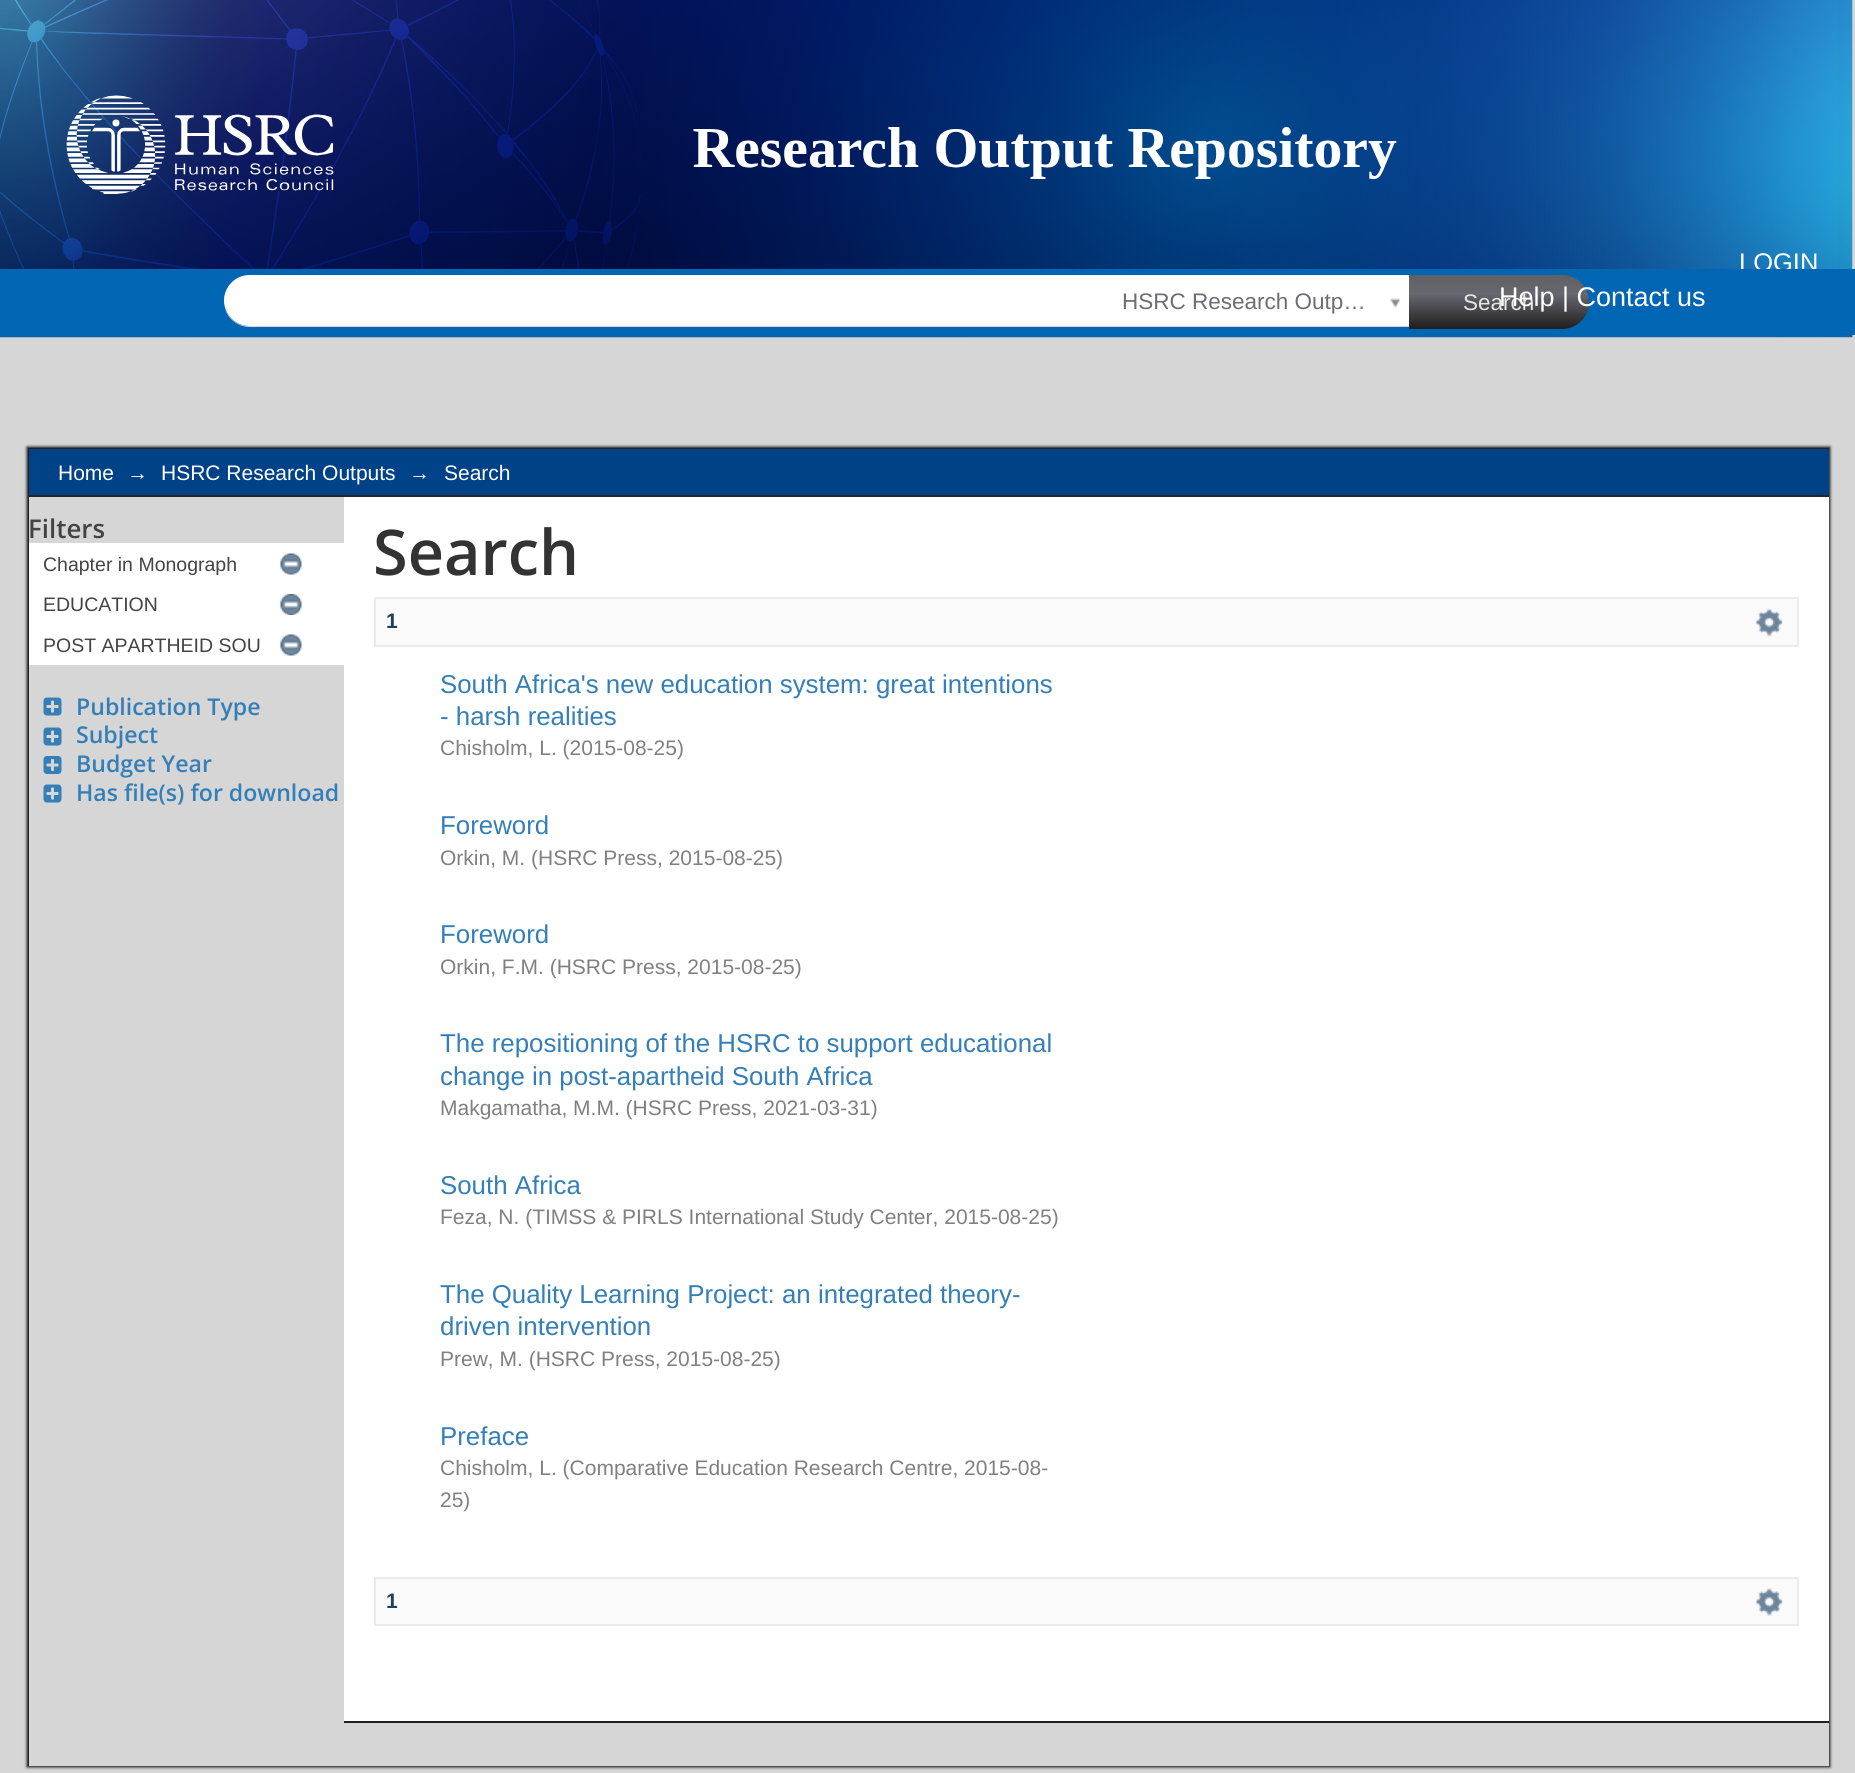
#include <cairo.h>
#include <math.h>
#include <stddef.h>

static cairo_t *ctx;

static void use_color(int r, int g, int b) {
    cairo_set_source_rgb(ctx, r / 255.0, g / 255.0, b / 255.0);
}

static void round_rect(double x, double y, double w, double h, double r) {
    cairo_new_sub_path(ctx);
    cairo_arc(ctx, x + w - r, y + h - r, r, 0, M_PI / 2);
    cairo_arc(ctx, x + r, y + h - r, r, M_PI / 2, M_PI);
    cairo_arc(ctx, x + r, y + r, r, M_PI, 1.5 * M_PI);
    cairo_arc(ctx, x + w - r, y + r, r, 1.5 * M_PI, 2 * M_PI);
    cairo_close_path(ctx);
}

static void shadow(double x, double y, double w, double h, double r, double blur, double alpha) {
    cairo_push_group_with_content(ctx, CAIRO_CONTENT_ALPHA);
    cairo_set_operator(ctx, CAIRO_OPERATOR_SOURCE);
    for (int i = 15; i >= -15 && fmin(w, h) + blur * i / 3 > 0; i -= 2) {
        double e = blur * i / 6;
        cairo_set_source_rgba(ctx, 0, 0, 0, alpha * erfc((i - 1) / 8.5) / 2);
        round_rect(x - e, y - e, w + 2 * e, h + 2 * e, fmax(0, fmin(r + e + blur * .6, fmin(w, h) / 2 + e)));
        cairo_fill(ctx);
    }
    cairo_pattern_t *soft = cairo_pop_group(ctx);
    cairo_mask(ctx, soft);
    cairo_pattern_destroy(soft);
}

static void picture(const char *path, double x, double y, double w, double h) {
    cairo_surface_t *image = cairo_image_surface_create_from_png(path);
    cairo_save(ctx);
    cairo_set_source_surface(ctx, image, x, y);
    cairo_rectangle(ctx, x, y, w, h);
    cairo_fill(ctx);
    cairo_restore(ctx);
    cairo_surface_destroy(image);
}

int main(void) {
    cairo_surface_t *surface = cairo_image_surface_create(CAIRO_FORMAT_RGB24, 1855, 1773);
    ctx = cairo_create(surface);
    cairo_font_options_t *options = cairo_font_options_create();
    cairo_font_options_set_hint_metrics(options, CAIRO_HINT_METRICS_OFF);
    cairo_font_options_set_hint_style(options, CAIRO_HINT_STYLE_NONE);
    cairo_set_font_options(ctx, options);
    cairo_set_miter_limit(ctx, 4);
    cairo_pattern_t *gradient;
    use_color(214, 214, 214);
    cairo_paint(ctx);
    picture("img1.png", 0, 0, 1853, 338);
    cairo_select_font_face(ctx, "Liberation Sans", CAIRO_FONT_SLANT_NORMAL, CAIRO_FONT_WEIGHT_NORMAL);
    cairo_set_font_size(ctx, 25.5);
    use_color(255, 255, 255);
    cairo_move_to(ctx, 1739, 271);
    cairo_show_text(ctx, "LOGIN");
    use_color(0, 102, 179);
    cairo_rectangle(ctx, 0, 269, 1855, 66);
    cairo_fill(ctx);
    use_color(210, 210, 218);
    cairo_new_path(ctx);
    cairo_move_to(ctx, 225, 309);
    cairo_curve_to(ctx, 228, 319, 238, 327, 250, 327);
    cairo_line_to(ctx, 1410, 327);
    cairo_curve_to(ctx, 1411, 327, 1412, 326, 1412, 326);
    cairo_line_to(ctx, 1412, 278);
    cairo_line_to(ctx, 1412, 276);
    cairo_line_to(ctx, 1412, 324);
    cairo_curve_to(ctx, 1412, 325, 1411, 326, 1410, 326);
    cairo_line_to(ctx, 249, 326);
    cairo_curve_to(ctx, 238, 326, 229, 319, 225, 309);
    cairo_close_path(ctx);
    cairo_fill(ctx);
    use_color(255, 255, 255);
    cairo_new_path(ctx);
    cairo_move_to(ctx, 249.5, 275);
    cairo_line_to(ctx, 1410.5, 275);
    cairo_curve_to(ctx, 1411.5, 275, 1412, 275.5, 1412, 276.5);
    cairo_line_to(ctx, 1412, 324.5);
    cairo_curve_to(ctx, 1412, 325.5, 1411.5, 326, 1410.5, 326);
    cairo_line_to(ctx, 249.5, 326);
    cairo_curve_to(ctx, 235.5, 326, 224, 314.5, 224, 300.5);
    cairo_curve_to(ctx, 224, 286.5, 235.5, 275, 249.5, 275);
    cairo_close_path(ctx);
    cairo_fill(ctx);
    cairo_set_font_size(ctx, 22.5);
    use_color(108, 109, 117);
    cairo_move_to(ctx, 1122, 309);
    cairo_show_text(ctx, "HSRC Research Outp…");
    picture("img2.png", 1390, 298, 11, 10);
    gradient = cairo_pattern_create_linear(1499, 275, 1499, 329);
    cairo_pattern_add_color_stop_rgba(gradient, 0, 0.376, 0.376, 0.392, 1);
    cairo_pattern_add_color_stop_rgba(gradient, 0.35, 0.404, 0.404, 0.439, 1);
    cairo_pattern_add_color_stop_rgba(gradient, 1, 0.118, 0.118, 0.118, 1);
    cairo_set_source(ctx, gradient);
    cairo_pattern_destroy(gradient);
    cairo_new_path(ctx);
    cairo_move_to(ctx, 1409, 275);
    cairo_line_to(ctx, 1562, 275);
    cairo_curve_to(ctx, 1577, 275, 1589, 287, 1589, 302);
    cairo_curve_to(ctx, 1589, 317, 1577, 329, 1562, 329);
    cairo_line_to(ctx, 1409, 329);
    cairo_close_path(ctx);
    cairo_fill(ctx);
    use_color(230, 230, 230);
    cairo_move_to(ctx, 1463, 310);
    cairo_show_text(ctx, "Search");
    cairo_set_font_size(ctx, 27);
    use_color(255, 255, 255);
    cairo_move_to(ctx, 1499, 306);
    cairo_show_text(ctx, "Help | Contact us");
    cairo_save(ctx);
    cairo_set_fill_rule(ctx, CAIRO_FILL_RULE_EVEN_ODD);
    cairo_new_path(ctx);
    cairo_move_to(ctx, 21, 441);
    cairo_line_to(ctx, 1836, 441);
    cairo_line_to(ctx, 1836, 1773);
    cairo_line_to(ctx, 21, 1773);
    cairo_close_path(ctx);
    cairo_move_to(ctx, 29, 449);
    cairo_line_to(ctx, 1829, 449);
    cairo_line_to(ctx, 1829, 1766);
    cairo_line_to(ctx, 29, 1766);
    cairo_close_path(ctx);
    cairo_clip(ctx);
    use_color(0, 0, 0);
    shadow(27, 447, 1803, 1320, 0, 1.5, 1);
    cairo_restore(ctx);
    use_color(0, 66, 135);
    cairo_rectangle(ctx, 29, 449, 1800, 46);
    cairo_fill(ctx);
    use_color(41, 37, 38);
    cairo_rectangle(ctx, 29, 495, 1800, 2);
    cairo_fill(ctx);
    cairo_set_font_size(ctx, 21);
    use_color(255, 255, 255);
    cairo_move_to(ctx, 58, 480);
    cairo_show_text(ctx, "Home");
    cairo_move_to(ctx, 127, 480);
    cairo_show_text(ctx, "→");
    cairo_move_to(ctx, 161, 480);
    cairo_show_text(ctx, "HSRC Research Outputs");
    cairo_move_to(ctx, 409, 480);
    cairo_show_text(ctx, "→");
    cairo_move_to(ctx, 444, 480);
    cairo_show_text(ctx, "Search");
    use_color(214, 214, 214);
    cairo_rectangle(ctx, 29, 1765, 315, 1);
    cairo_fill(ctx);
    cairo_select_font_face(ctx, "Open Sans SemiBold", CAIRO_FONT_SLANT_NORMAL, CAIRO_FONT_WEIGHT_NORMAL);
    cairo_set_font_size(ctx, 25.85);
    use_color(68, 68, 68);
    cairo_move_to(ctx, 28, 538);
    cairo_show_text(ctx, "Filters");
    use_color(255, 255, 255);
    cairo_rectangle(ctx, 29, 543, 315, 122);
    cairo_fill(ctx);
    cairo_select_font_face(ctx, "Liberation Sans", CAIRO_FONT_SLANT_NORMAL, CAIRO_FONT_WEIGHT_NORMAL);
    cairo_set_font_size(ctx, 19.5);
    use_color(68, 68, 68);
    cairo_move_to(ctx, 43, 571);
    cairo_show_text(ctx, "Chapter in Monograph");
    picture("img3.png", 280, 553, 22, 22);
    cairo_move_to(ctx, 43, 611);
    cairo_show_text(ctx, "EDUCATION");
    picture("img4.png", 280, 594, 22, 21);
    cairo_move_to(ctx, 43, 652);
    cairo_show_text(ctx, "POST APARTHEID SOU");
    picture("img3.png", 280, 634, 22, 22);
    picture("img5.png", 43, 697, 19, 19);
    cairo_select_font_face(ctx, "Open Sans SemiBold", CAIRO_FONT_SLANT_NORMAL, CAIRO_FONT_WEIGHT_NORMAL);
    cairo_set_font_size(ctx, 23.1);
    use_color(52, 127, 184);
    cairo_move_to(ctx, 76, 715);
    cairo_show_text(ctx, "Publication Type");
    picture("img5.png", 43, 727, 19, 19);
    cairo_move_to(ctx, 76, 743);
    cairo_show_text(ctx, "Subject");
    picture("img6.png", 43, 756, 19, 18);
    cairo_move_to(ctx, 76, 772);
    cairo_show_text(ctx, "Budget Year");
    picture("img5.png", 43, 784, 19, 19);
    cairo_move_to(ctx, 76, 801);
    cairo_show_text(ctx, "Has file(s) for download");
    use_color(255, 255, 255);
    cairo_rectangle(ctx, 344, 497, 1485, 1224);
    cairo_fill(ctx);
    use_color(35, 31, 32);
    cairo_rectangle(ctx, 344, 1721, 1485, 2);
    cairo_fill(ctx);
    cairo_set_font_size(ctx, 63);
    use_color(51, 51, 51);
    cairo_move_to(ctx, 373, 575);
    cairo_show_text(ctx, "Search");
    use_color(250, 250, 250);
    cairo_rectangle(ctx, 375, 598, 1423, 48);
    cairo_fill_preserve(ctx);
    use_color(235, 235, 235);
    cairo_stroke(ctx);
    cairo_select_font_face(ctx, "Liberation Sans", CAIRO_FONT_SLANT_NORMAL, CAIRO_FONT_WEIGHT_BOLD);
    cairo_set_font_size(ctx, 21);
    use_color(31, 63, 94);
    cairo_move_to(ctx, 386, 628);
    cairo_show_text(ctx, "1");
    picture("img7.png", 1756, 608, 27, 29);
    cairo_select_font_face(ctx, "Liberation Sans", CAIRO_FONT_SLANT_NORMAL, CAIRO_FONT_WEIGHT_NORMAL);
    cairo_set_font_size(ctx, 25.85);
    use_color(52, 127, 184);
    cairo_move_to(ctx, 440, 693);
    cairo_show_text(ctx, "South Africa's new education system: great intentions");
    cairo_move_to(ctx, 440, 725);
    cairo_show_text(ctx, "- harsh realities");
    cairo_set_font_size(ctx, 21);
    use_color(128, 128, 128);
    cairo_move_to(ctx, 440, 755);
    cairo_show_text(ctx, "Chisholm, L. (2015-08-25)");
    cairo_set_font_size(ctx, 25.85);
    use_color(52, 127, 184);
    cairo_move_to(ctx, 440, 834);
    cairo_show_text(ctx, "Foreword");
    cairo_set_font_size(ctx, 21);
    use_color(128, 128, 128);
    cairo_move_to(ctx, 440, 865);
    cairo_show_text(ctx, "Orkin, M. (HSRC Press, 2015-08-25)");
    cairo_set_font_size(ctx, 25.85);
    use_color(52, 127, 184);
    cairo_move_to(ctx, 440, 943);
    cairo_show_text(ctx, "Foreword");
    cairo_set_font_size(ctx, 21);
    use_color(128, 128, 128);
    cairo_move_to(ctx, 440, 974);
    cairo_show_text(ctx, "Orkin, F.M. (HSRC Press, 2015-08-25)");
    cairo_set_font_size(ctx, 25.85);
    use_color(52, 127, 184);
    cairo_move_to(ctx, 440, 1052);
    cairo_show_text(ctx, "The repositioning of the HSRC to support educational");
    cairo_move_to(ctx, 440, 1085);
    cairo_show_text(ctx, "change in post-apartheid South Africa");
    cairo_set_font_size(ctx, 21);
    use_color(128, 128, 128);
    cairo_move_to(ctx, 440, 1115);
    cairo_show_text(ctx, "Makgamatha, M.M. (HSRC Press, 2021-03-31)");
    cairo_set_font_size(ctx, 25.85);
    use_color(52, 127, 184);
    cairo_move_to(ctx, 440, 1194);
    cairo_show_text(ctx, "South Africa");
    cairo_set_font_size(ctx, 21);
    use_color(128, 128, 128);
    cairo_move_to(ctx, 440, 1224);
    cairo_show_text(ctx, "Feza, N. (TIMSS & PIRLS International Study Center, 2015-08-25)");
    cairo_set_font_size(ctx, 25.85);
    use_color(52, 127, 184);
    cairo_move_to(ctx, 440, 1303);
    cairo_show_text(ctx, "The Quality Learning Project: an integrated theory-");
    cairo_move_to(ctx, 440, 1335);
    cairo_show_text(ctx, "driven intervention");
    cairo_set_font_size(ctx, 21);
    use_color(128, 128, 128);
    cairo_move_to(ctx, 440, 1366);
    cairo_show_text(ctx, "Prew, M. (HSRC Press, 2015-08-25)");
    cairo_set_font_size(ctx, 25.85);
    use_color(52, 127, 184);
    cairo_move_to(ctx, 440, 1445);
    cairo_show_text(ctx, "Preface");
    cairo_set_font_size(ctx, 21);
    use_color(128, 128, 128);
    cairo_move_to(ctx, 440, 1475);
    cairo_show_text(ctx, "Chisholm, L. (Comparative Education Research Centre, 2015-08-");
    cairo_move_to(ctx, 440, 1507);
    cairo_show_text(ctx, "25)");
    use_color(250, 250, 250);
    cairo_rectangle(ctx, 375, 1578, 1423, 47);
    cairo_fill_preserve(ctx);
    use_color(235, 235, 235);
    cairo_stroke(ctx);
    cairo_select_font_face(ctx, "Liberation Sans", CAIRO_FONT_SLANT_NORMAL, CAIRO_FONT_WEIGHT_BOLD);
    use_color(31, 63, 94);
    cairo_move_to(ctx, 386, 1608);
    cairo_show_text(ctx, "1");
    picture("img8.png", 1756, 1588, 27, 28);
    cairo_surface_write_to_png(surface, "result.png");
    cairo_font_options_destroy(options);
    cairo_destroy(ctx);
    cairo_surface_destroy(surface);
    return 0;
}
